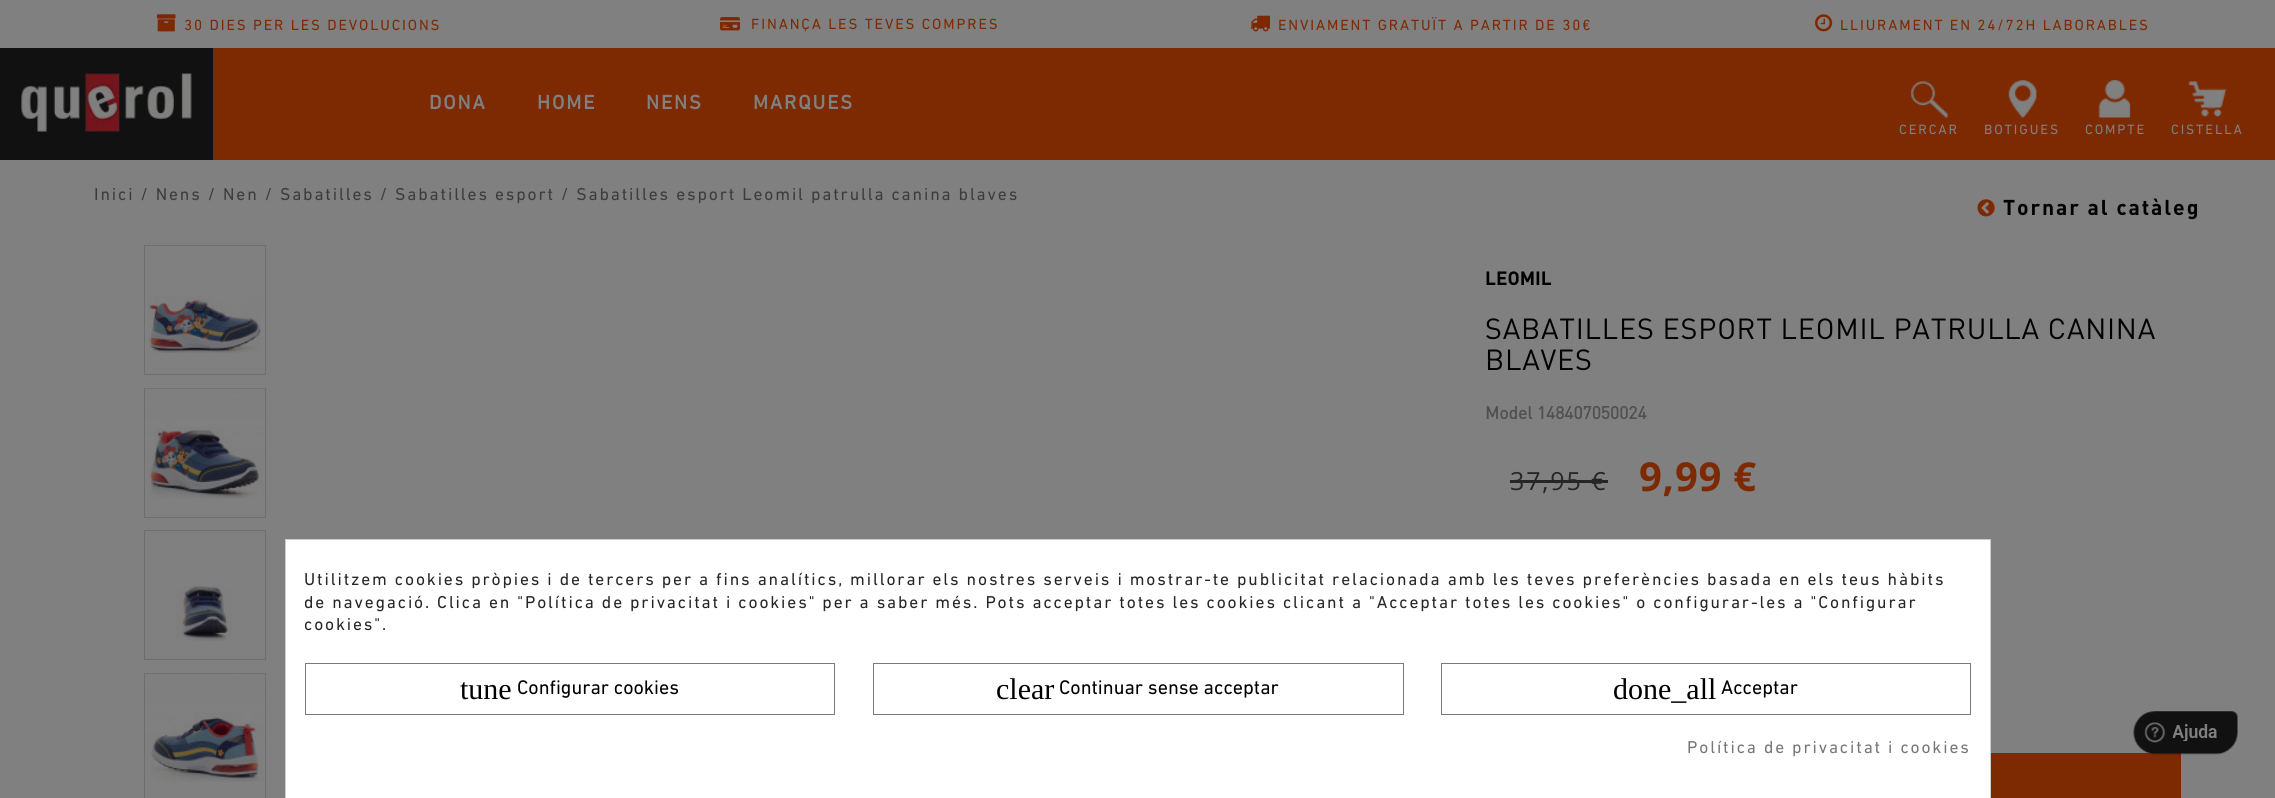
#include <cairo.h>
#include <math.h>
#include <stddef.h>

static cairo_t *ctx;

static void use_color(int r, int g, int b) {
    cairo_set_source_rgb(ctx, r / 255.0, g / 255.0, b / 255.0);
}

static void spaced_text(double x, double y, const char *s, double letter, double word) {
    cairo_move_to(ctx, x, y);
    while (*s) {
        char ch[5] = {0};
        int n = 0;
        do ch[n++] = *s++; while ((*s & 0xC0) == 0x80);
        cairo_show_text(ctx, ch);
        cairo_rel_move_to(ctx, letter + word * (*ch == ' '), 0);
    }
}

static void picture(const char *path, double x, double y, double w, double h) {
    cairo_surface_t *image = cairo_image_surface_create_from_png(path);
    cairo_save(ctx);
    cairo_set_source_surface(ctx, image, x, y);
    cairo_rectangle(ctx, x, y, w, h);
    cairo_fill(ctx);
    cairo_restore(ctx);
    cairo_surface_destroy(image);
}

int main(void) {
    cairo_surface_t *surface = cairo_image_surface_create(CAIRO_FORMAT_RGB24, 2275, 798);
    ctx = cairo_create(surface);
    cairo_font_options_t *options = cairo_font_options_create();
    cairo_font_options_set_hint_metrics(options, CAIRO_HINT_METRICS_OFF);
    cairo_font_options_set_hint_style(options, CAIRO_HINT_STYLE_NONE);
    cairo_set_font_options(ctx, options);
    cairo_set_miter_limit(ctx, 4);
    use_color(128, 128, 128);
    cairo_paint(ctx);
    use_color(125, 41, 2);
    cairo_rectangle(ctx, 213, 48, 2062, 112);
    cairo_fill(ctx);
    picture("img1.png", 156, 14, 20, 18);
    cairo_select_font_face(ctx, "DIN Next", CAIRO_FONT_SLANT_NORMAL, CAIRO_FONT_WEIGHT_NORMAL);
    cairo_set_font_size(ctx, 15);
    spaced_text(184, 30, "30 DIES PER LES DEVOLUCIONS", 1.88, 0);
    picture("img2.png", 720, 17, 20, 14);
    spaced_text(751, 29, "FINANÇA LES TEVES COMPRES", 1.88, 0);
    picture("img3.png", 1250, 15, 20, 17);
    spaced_text(1278, 30, "ENVIAMENT GRATUÏT A PARTIR DE 30€", 1.88, 0);
    picture("img4.png", 1815, 14, 18, 18);
    spaced_text(1840, 30, "LLIURAMENT EN 24/72H LABORABLES", 1.88, 0);
    use_color(17, 17, 17);
    cairo_rectangle(ctx, 0, 48, 213, 112);
    cairo_fill(ctx);
    picture("img5.png", 21, 73, 171, 59);
    cairo_select_font_face(ctx, "DIN Next", CAIRO_FONT_SLANT_NORMAL, CAIRO_FONT_WEIGHT_BOLD);
    cairo_set_font_size(ctx, 20);
    use_color(128, 128, 128);
    spaced_text(429, 109, "DONA", 1.88, 0);
    spaced_text(537, 109, "HOME", 1.88, 0);
    spaced_text(646, 109, "NENS", 1.88, 0);
    spaced_text(753, 109, "MARQUES", 1.88, 0);
    picture("img6.png", 1911, 81, 37, 37);
    cairo_select_font_face(ctx, "DIN Next", CAIRO_FONT_SLANT_NORMAL, CAIRO_FONT_WEIGHT_NORMAL);
    cairo_set_font_size(ctx, 13.75);
    spaced_text(1899, 134, "CERCAR", 1.88, 0);
    picture("img7.png", 2008, 80, 29, 38);
    spaced_text(1984, 134, "BOTIGUES", 1.88, 0);
    picture("img8.png", 2098, 80, 33, 38);
    spaced_text(2085, 134, "COMPTE", 1.88, 0);
    picture("img9.png", 2188, 81, 39, 36);
    spaced_text(2171, 134, "CISTELLA", 1.88, 0);
    cairo_set_font_size(ctx, 17.5);
    use_color(60, 60, 60);
    spaced_text(94, 200, "Inici / Nens / Nen / Sabatilles / Sabatilles esport / Sabatilles esport Leomil patrulla canina blaves", 1.88, 0);
    picture("img10.png", 1977, 199, 18, 18);
    cairo_select_font_face(ctx, "DIN", CAIRO_FONT_SLANT_NORMAL, CAIRO_FONT_WEIGHT_BOLD);
    cairo_set_font_size(ctx, 21.25);
    use_color(0, 0, 0);
    spaced_text(2003, 215, "Tornar al catàleg", 1.88, 0);
    cairo_rectangle(ctx, 144.5, 245.5, 121, 129);
    use_color(110, 110, 110);
    cairo_set_line_width(ctx, 1);
    cairo_stroke(ctx);
    picture("img11.png", 148, 295, 113, 58);
    cairo_rectangle(ctx, 144.5, 388.5, 121, 129);
    cairo_stroke(ctx);
    picture("img12.png", 145, 388, 120, 111);
    cairo_rectangle(ctx, 144.5, 530.5, 121, 129);
    cairo_stroke(ctx);
    picture("img13.png", 176, 586, 56, 55);
    cairo_rectangle(ctx, 144.5, 673.5, 121, 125);
    cairo_stroke(ctx);
    picture("img14.png", 145, 673, 120, 109);
    cairo_set_font_size(ctx, 19);
    use_color(0, 0, 0);
    cairo_move_to(ctx, 1485, 285);
    cairo_show_text(ctx, "LEOMIL");
    cairo_select_font_face(ctx, "DIN", CAIRO_FONT_SLANT_NORMAL, CAIRO_FONT_WEIGHT_NORMAL);
    cairo_set_font_size(ctx, 28.75);
    spaced_text(1485, 339, "SABATILLES ESPORT LEOMIL PATRULLA CANINA", 0.75, 0);
    spaced_text(1485, 370, "BLAVES", 0.75, 0);
    cairo_select_font_face(ctx, "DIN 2", CAIRO_FONT_SLANT_NORMAL, CAIRO_FONT_WEIGHT_BOLD);
    cairo_set_font_size(ctx, 17.5);
    use_color(80, 80, 80);
    cairo_move_to(ctx, 1485, 419);
    cairo_show_text(ctx, "Model 148407050024");
    cairo_select_font_face(ctx, "Open Sans", CAIRO_FONT_SLANT_NORMAL, CAIRO_FONT_WEIGHT_NORMAL);
    cairo_set_font_size(ctx, 25);
    use_color(38, 38, 38);
    spaced_text(1510, 490, "37,95 €", 1.88, 0);
    cairo_rectangle(ctx, 1510, 480, 98, 3);
    cairo_fill(ctx);
    cairo_select_font_face(ctx, "Open Sans", CAIRO_FONT_SLANT_NORMAL, CAIRO_FONT_WEIGHT_BOLD);
    cairo_set_font_size(ctx, 40);
    use_color(125, 41, 2);
    spaced_text(1639, 491, "9,99 €", 0.75, 0);
    cairo_rectangle(ctx, 1991, 753, 190, 45);
    cairo_fill(ctx);
    use_color(255, 255, 255);
    cairo_rectangle(ctx, 285.5, 539.5, 1705, 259);
    cairo_fill_preserve(ctx);
    use_color(204, 204, 204);
    cairo_stroke(ctx);
    cairo_select_font_face(ctx, "DIN Next", CAIRO_FONT_SLANT_NORMAL, CAIRO_FONT_WEIGHT_NORMAL);
    cairo_set_font_size(ctx, 17.5);
    use_color(38, 38, 38);
    spaced_text(304, 585, "Utilitzem cookies pròpies i de tercers per a fins analítics, millorar els nostres serveis i mostrar-te publicitat relacionada amb les teves preferències basada en els teus hàbits", 1.88, 0);
    spaced_text(304, 608, "de navegació. Clica en \"Política de privacitat i cookies\" per a saber més. Pots acceptar totes les cookies clicant a \"Acceptar totes les cookies\" o configurar-les a \"Configurar", 1.88, 0);
    spaced_text(304, 630, "cookies\".", 1.88, 0);
    cairo_rectangle(ctx, 305.5, 663.5, 529, 51);
    use_color(122, 122, 122);
    cairo_stroke(ctx);
    cairo_select_font_face(ctx, "Liberation Serif", CAIRO_FONT_SLANT_NORMAL, CAIRO_FONT_WEIGHT_NORMAL);
    cairo_set_font_size(ctx, 30);
    use_color(0, 0, 0);
    cairo_move_to(ctx, 460, 699);
    cairo_show_text(ctx, "tune");
    cairo_select_font_face(ctx, "DIN Next", CAIRO_FONT_SLANT_NORMAL, CAIRO_FONT_WEIGHT_NORMAL);
    cairo_set_font_size(ctx, 20);
    cairo_move_to(ctx, 517, 694);
    cairo_show_text(ctx, "Configurar cookies");
    cairo_rectangle(ctx, 873.5, 663.5, 530, 51);
    use_color(122, 122, 122);
    cairo_stroke(ctx);
    cairo_select_font_face(ctx, "Liberation Serif", CAIRO_FONT_SLANT_NORMAL, CAIRO_FONT_WEIGHT_NORMAL);
    cairo_set_font_size(ctx, 30);
    use_color(0, 0, 0);
    cairo_move_to(ctx, 996, 699);
    cairo_show_text(ctx, "clear");
    cairo_select_font_face(ctx, "DIN Next", CAIRO_FONT_SLANT_NORMAL, CAIRO_FONT_WEIGHT_NORMAL);
    cairo_set_font_size(ctx, 20);
    cairo_move_to(ctx, 1059, 694);
    cairo_show_text(ctx, "Continuar sense acceptar");
    cairo_rectangle(ctx, 1441.5, 663.5, 529, 51);
    use_color(122, 122, 122);
    cairo_stroke(ctx);
    cairo_select_font_face(ctx, "Liberation Serif", CAIRO_FONT_SLANT_NORMAL, CAIRO_FONT_WEIGHT_NORMAL);
    cairo_set_font_size(ctx, 30);
    use_color(0, 0, 0);
    cairo_move_to(ctx, 1613, 699);
    cairo_show_text(ctx, "done_all");
    cairo_select_font_face(ctx, "DIN Next", CAIRO_FONT_SLANT_NORMAL, CAIRO_FONT_WEIGHT_NORMAL);
    cairo_set_font_size(ctx, 20);
    cairo_move_to(ctx, 1721, 694);
    cairo_show_text(ctx, "Acceptar");
    cairo_set_font_size(ctx, 17.5);
    use_color(119, 119, 119);
    spaced_text(1687, 753, "Política de privacitat i cookies", 1.88, 0);
    picture("img15.png", 2133, 711, 105, 44);
    cairo_surface_write_to_png(surface, "result.png");
    cairo_font_options_destroy(options);
    cairo_destroy(ctx);
    cairo_surface_destroy(surface);
    return 0;
}
